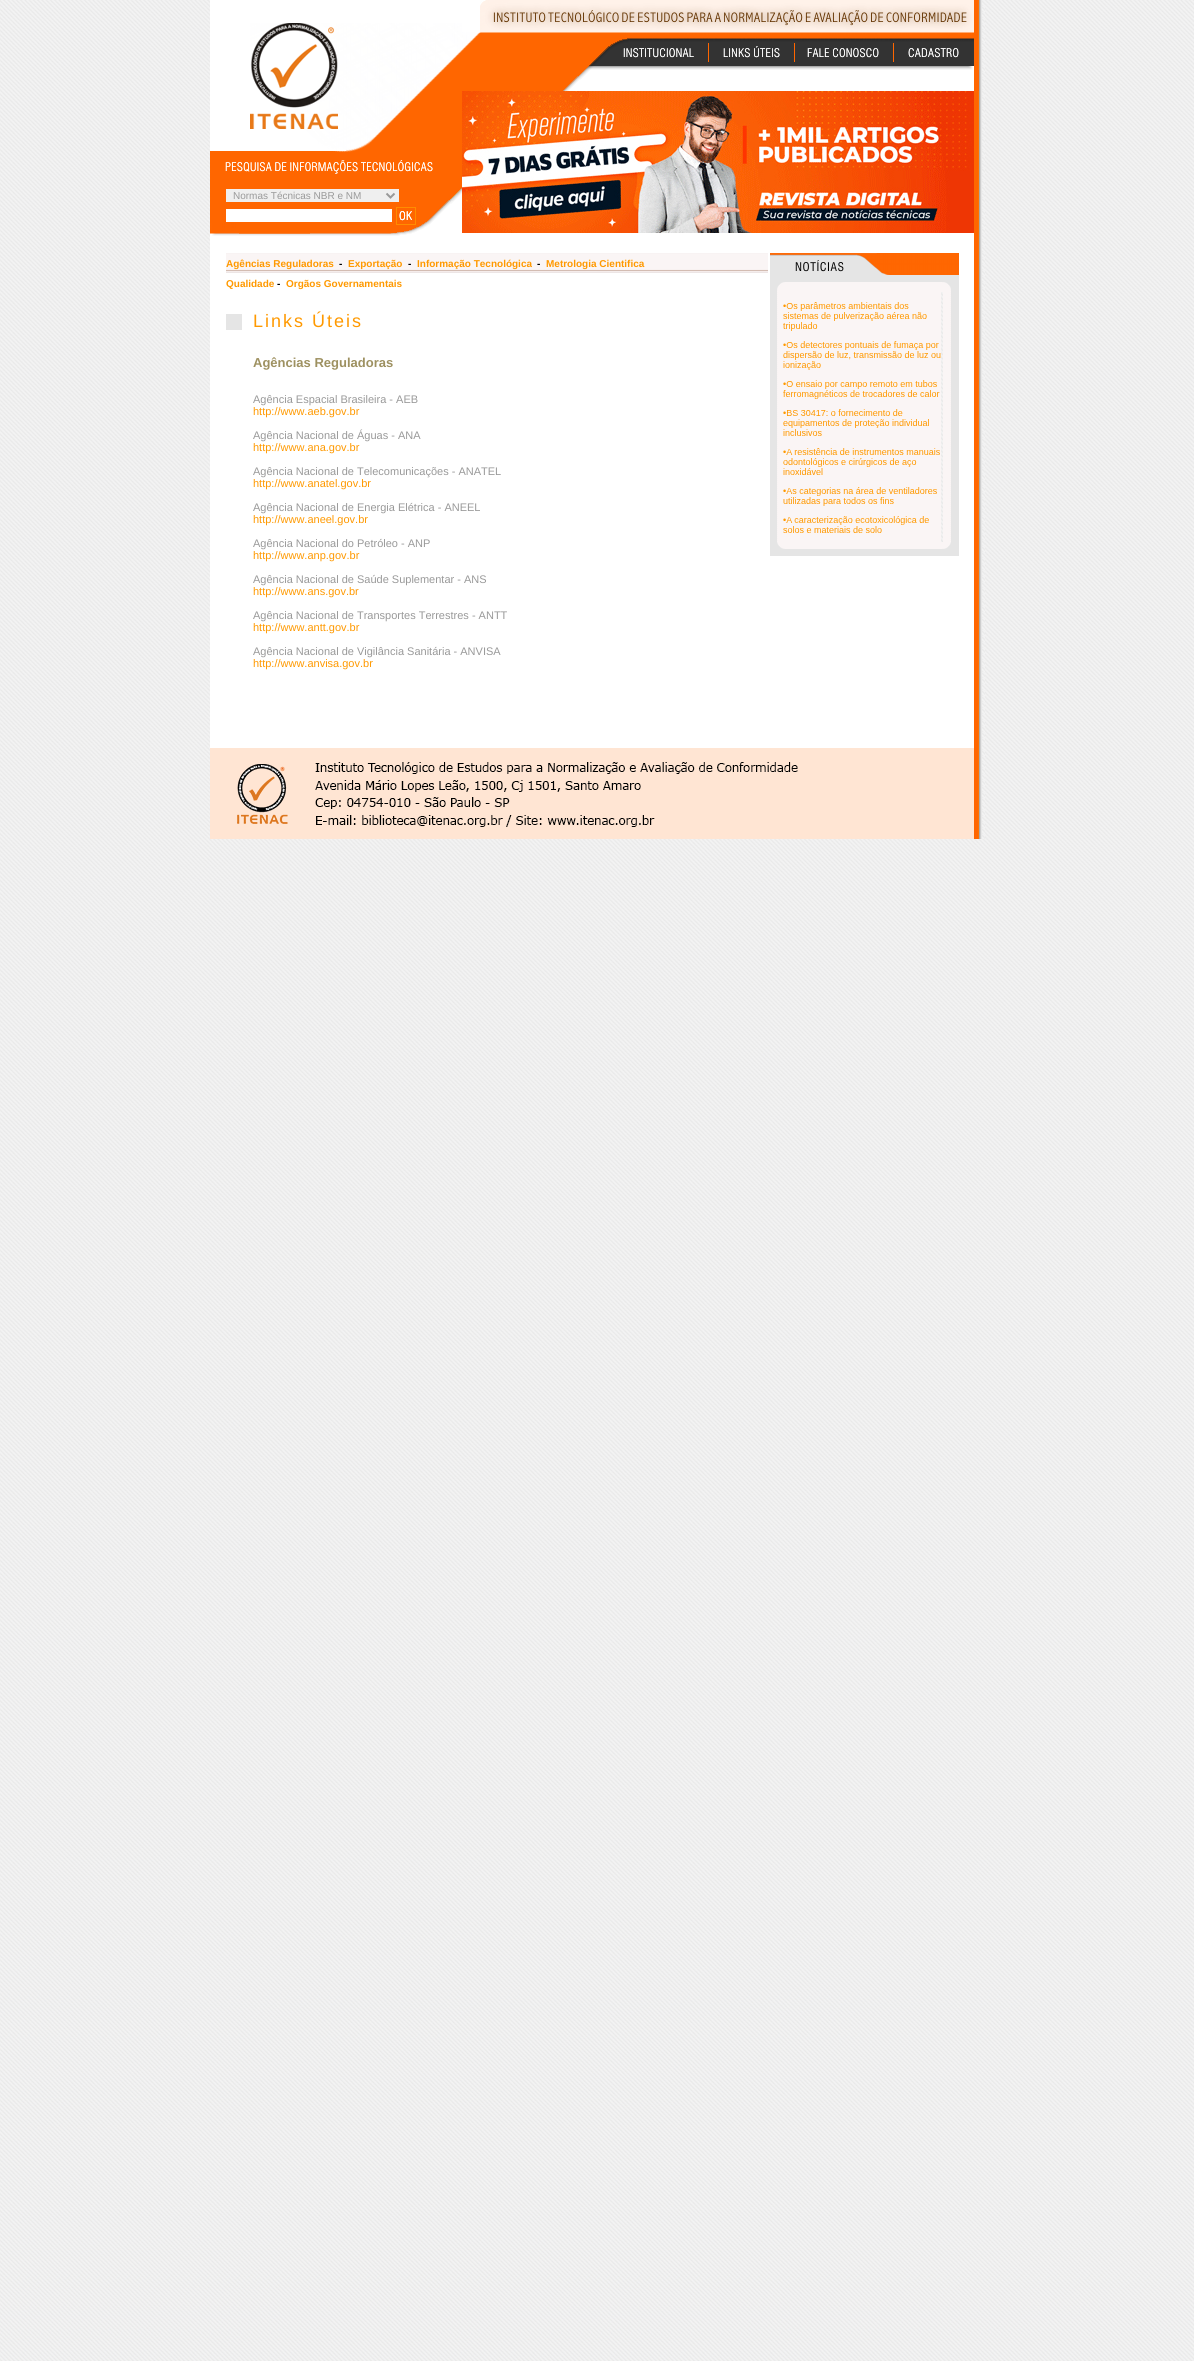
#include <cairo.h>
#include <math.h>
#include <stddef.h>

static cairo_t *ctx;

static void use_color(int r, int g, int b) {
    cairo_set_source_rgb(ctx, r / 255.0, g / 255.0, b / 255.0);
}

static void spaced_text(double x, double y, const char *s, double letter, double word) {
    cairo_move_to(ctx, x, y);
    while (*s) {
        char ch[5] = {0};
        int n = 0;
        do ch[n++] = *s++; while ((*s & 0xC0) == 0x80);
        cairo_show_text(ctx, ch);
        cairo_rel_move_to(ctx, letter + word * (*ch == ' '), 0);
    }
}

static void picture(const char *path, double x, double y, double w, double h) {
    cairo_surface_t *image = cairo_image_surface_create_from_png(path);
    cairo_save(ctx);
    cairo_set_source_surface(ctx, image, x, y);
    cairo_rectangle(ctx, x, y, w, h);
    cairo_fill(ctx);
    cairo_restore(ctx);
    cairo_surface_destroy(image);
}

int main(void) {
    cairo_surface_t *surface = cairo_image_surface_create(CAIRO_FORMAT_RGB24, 1194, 2361);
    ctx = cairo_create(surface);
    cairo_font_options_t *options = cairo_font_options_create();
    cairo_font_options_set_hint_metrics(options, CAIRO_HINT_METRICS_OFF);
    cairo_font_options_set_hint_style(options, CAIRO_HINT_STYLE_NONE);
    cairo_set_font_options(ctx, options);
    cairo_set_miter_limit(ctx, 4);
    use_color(255, 255, 255);
    cairo_paint(ctx);
    picture("img1.png", 0, 0, 1194, 2361);
    picture("img2.png", 210, 0, 775, 839);
    picture("img3.png", 250, 23, 212, 113);
    picture("img4.png", 210, 136, 252, 100);
    use_color(239, 239, 239);
    cairo_rectangle(ctx, 226, 189, 173, 13);
    cairo_fill(ctx);
    cairo_new_path(ctx);
    cairo_move_to(ctx, 386.5, 193.5);
    cairo_line_to(ctx, 390.5, 197.5);
    cairo_line_to(ctx, 394.5, 193.5);
    use_color(153, 153, 153);
    cairo_stroke(ctx);
    cairo_select_font_face(ctx, "Liberation Sans", CAIRO_FONT_SLANT_NORMAL, CAIRO_FONT_WEIGHT_NORMAL);
    cairo_set_font_size(ctx, 10);
    cairo_move_to(ctx, 233, 199);
    cairo_show_text(ctx, "Normas Técnicas NBR e NM");
    use_color(255, 255, 255);
    cairo_rectangle(ctx, 226, 209, 166, 13);
    cairo_fill(ctx);
    cairo_rectangle(ctx, 396.5, 207.5, 19, 17);
    use_color(255, 140, 0);
    cairo_set_line_width(ctx, 1);
    cairo_stroke(ctx);
    picture("img5.png", 399, 211, 13, 10);
    picture("img6.png", 480, 0, 494, 32);
    picture("img7.png", 462, 32, 512, 38);
    picture("img8.png", 462, 70, 517, 21);
    picture("img9.png", 462, 91, 512, 142);
    picture("img10.png", 226, 253, 542, 20);
    cairo_select_font_face(ctx, "Liberation Sans", CAIRO_FONT_SLANT_NORMAL, CAIRO_FONT_WEIGHT_BOLD);
    use_color(255, 153, 0);
    cairo_move_to(ctx, 226, 267);
    cairo_show_text(ctx, "Agências Reguladoras");
    use_color(0, 0, 0);
    cairo_move_to(ctx, 339, 267);
    cairo_show_text(ctx, "-");
    use_color(255, 153, 0);
    cairo_move_to(ctx, 348, 267);
    cairo_show_text(ctx, "Exportação");
    use_color(0, 0, 0);
    cairo_move_to(ctx, 408, 267);
    cairo_show_text(ctx, "-");
    use_color(255, 153, 0);
    cairo_move_to(ctx, 417, 267);
    cairo_show_text(ctx, "Informação Tecnológica");
    use_color(0, 0, 0);
    cairo_move_to(ctx, 537, 267);
    cairo_show_text(ctx, "-");
    use_color(255, 153, 0);
    cairo_move_to(ctx, 546, 267);
    cairo_show_text(ctx, "Metrologia Cientifica");
    cairo_move_to(ctx, 226, 287);
    cairo_show_text(ctx, "Qualidade");
    use_color(0, 0, 0);
    cairo_move_to(ctx, 277, 287);
    cairo_show_text(ctx, "-");
    use_color(255, 153, 0);
    cairo_move_to(ctx, 286, 287);
    cairo_show_text(ctx, "Orgãos Governamentais");
    use_color(229, 229, 229);
    cairo_rectangle(ctx, 226, 314, 16, 16);
    cairo_fill(ctx);
    cairo_select_font_face(ctx, "Liberation Sans", CAIRO_FONT_SLANT_NORMAL, CAIRO_FONT_WEIGHT_NORMAL);
    cairo_set_font_size(ctx, 18);
    use_color(255, 153, 0);
    spaced_text(253, 327, "Links Úteis", 2, 0);
    cairo_select_font_face(ctx, "Liberation Sans", CAIRO_FONT_SLANT_NORMAL, CAIRO_FONT_WEIGHT_BOLD);
    cairo_set_font_size(ctx, 13);
    use_color(158, 145, 97);
    cairo_move_to(ctx, 253, 367);
    cairo_show_text(ctx, "Agências Reguladoras");
    cairo_select_font_face(ctx, "Liberation Sans", CAIRO_FONT_SLANT_NORMAL, CAIRO_FONT_WEIGHT_NORMAL);
    cairo_set_font_size(ctx, 11);
    use_color(153, 153, 153);
    cairo_move_to(ctx, 253, 403);
    cairo_show_text(ctx, "Agência Espacial Brasileira - AEB");
    use_color(255, 153, 0);
    cairo_move_to(ctx, 253, 415);
    cairo_show_text(ctx, "http://www.aeb.gov.br");
    use_color(153, 153, 153);
    cairo_move_to(ctx, 253, 439);
    cairo_show_text(ctx, "Agência Nacional de Águas - ANA");
    use_color(255, 153, 0);
    cairo_move_to(ctx, 253, 451);
    cairo_show_text(ctx, "http://www.ana.gov.br");
    use_color(153, 153, 153);
    cairo_move_to(ctx, 253, 475);
    cairo_show_text(ctx, "Agência Nacional de Telecomunicações - ANATEL");
    use_color(255, 153, 0);
    cairo_move_to(ctx, 253, 487);
    cairo_show_text(ctx, "http://www.anatel.gov.br");
    use_color(153, 153, 153);
    cairo_move_to(ctx, 253, 511);
    cairo_show_text(ctx, "Agência Nacional de Energia Elétrica - ANEEL");
    use_color(255, 153, 0);
    cairo_move_to(ctx, 253, 523);
    cairo_show_text(ctx, "http://www.aneel.gov.br");
    use_color(153, 153, 153);
    cairo_move_to(ctx, 253, 547);
    cairo_show_text(ctx, "Agência Nacional do Petróleo - ANP");
    use_color(255, 153, 0);
    cairo_move_to(ctx, 253, 559);
    cairo_show_text(ctx, "http://www.anp.gov.br");
    use_color(153, 153, 153);
    cairo_move_to(ctx, 253, 583);
    cairo_show_text(ctx, "Agência Nacional de Saúde Suplementar - ANS");
    use_color(255, 153, 0);
    cairo_move_to(ctx, 253, 595);
    cairo_show_text(ctx, "http://www.ans.gov.br");
    use_color(153, 153, 153);
    cairo_move_to(ctx, 253, 619);
    cairo_show_text(ctx, "Agência Nacional de Transportes Terrestres - ANTT");
    use_color(255, 153, 0);
    cairo_move_to(ctx, 253, 631);
    cairo_show_text(ctx, "http://www.antt.gov.br");
    use_color(153, 153, 153);
    cairo_move_to(ctx, 253, 655);
    cairo_show_text(ctx, "Agência Nacional de Vigilância Sanitária - ANVISA");
    use_color(255, 153, 0);
    cairo_move_to(ctx, 253, 667);
    cairo_show_text(ctx, "http://www.anvisa.gov.br");
    picture("img11.png", 770, 253, 189, 39);
    picture("img12.png", 770, 292, 189, 250);
    picture("img13.png", 783, 292, 160, 250);
    picture("img14.png", 770, 542, 189, 14);
    use_color(255, 229, 211);
    cairo_rectangle(ctx, 210, 748, 764, 91);
    cairo_fill(ctx);
    picture("img15.png", 237, 762, 561, 65);
    cairo_surface_write_to_png(surface, "result.png");
    cairo_font_options_destroy(options);
    cairo_destroy(ctx);
    cairo_surface_destroy(surface);
    return 0;
}
